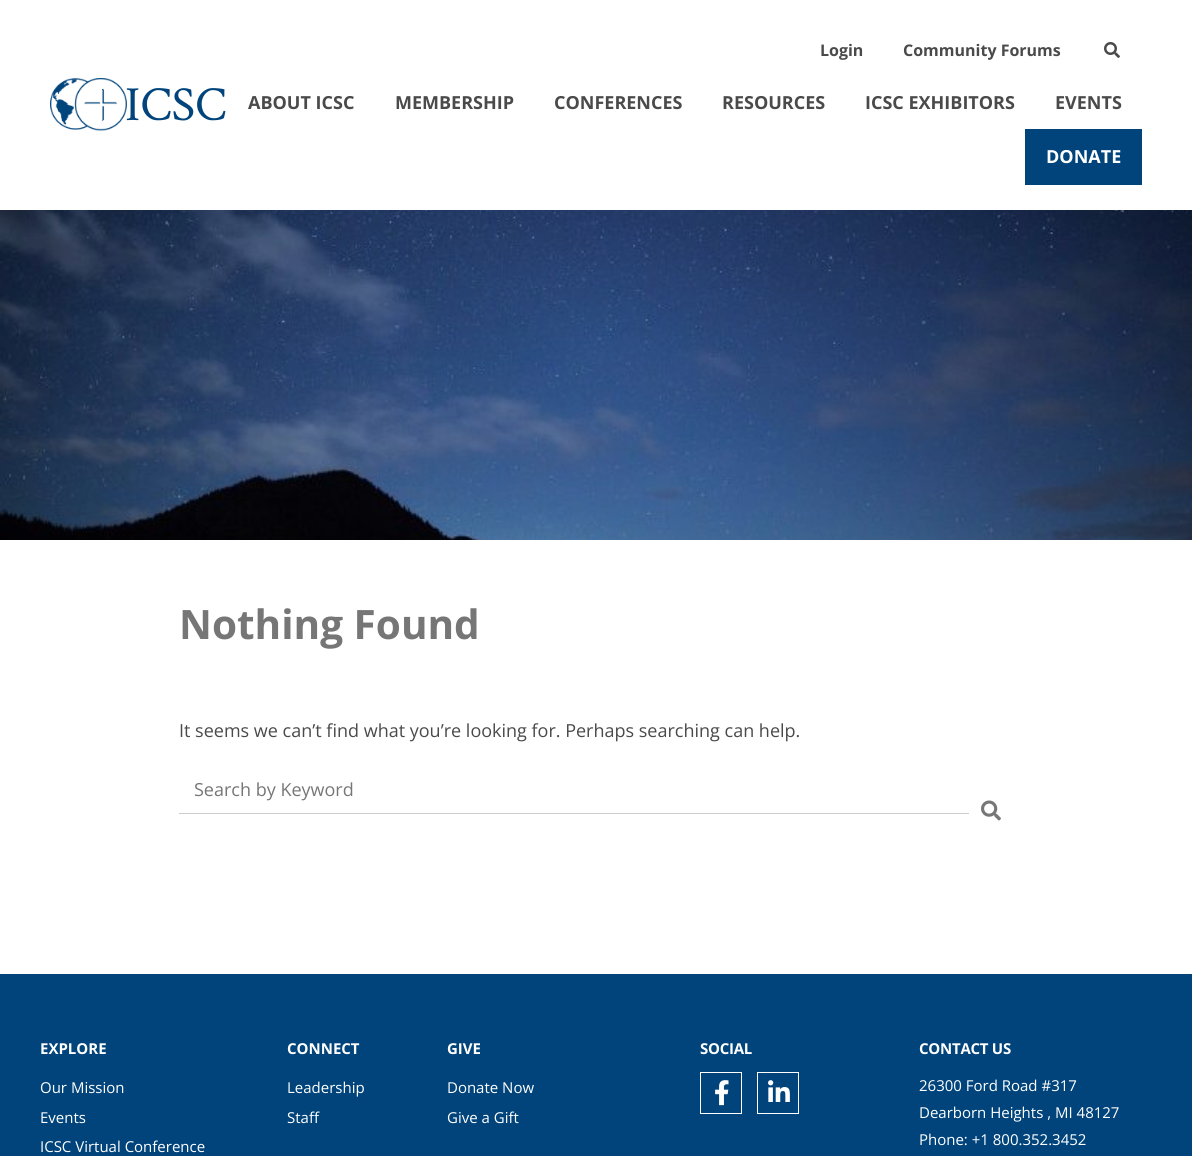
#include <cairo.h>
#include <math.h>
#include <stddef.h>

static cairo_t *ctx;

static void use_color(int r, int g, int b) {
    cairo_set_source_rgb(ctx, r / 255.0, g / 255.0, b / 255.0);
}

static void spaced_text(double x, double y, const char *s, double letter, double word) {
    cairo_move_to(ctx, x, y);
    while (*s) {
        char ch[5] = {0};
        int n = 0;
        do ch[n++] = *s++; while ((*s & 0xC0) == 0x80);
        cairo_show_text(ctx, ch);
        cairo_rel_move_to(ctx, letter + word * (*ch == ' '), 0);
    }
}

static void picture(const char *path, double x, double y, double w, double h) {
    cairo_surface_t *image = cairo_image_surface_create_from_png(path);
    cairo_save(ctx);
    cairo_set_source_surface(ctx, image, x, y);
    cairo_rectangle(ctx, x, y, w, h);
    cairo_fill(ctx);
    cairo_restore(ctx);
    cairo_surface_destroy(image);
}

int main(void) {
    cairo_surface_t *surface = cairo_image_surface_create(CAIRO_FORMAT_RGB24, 1192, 1156);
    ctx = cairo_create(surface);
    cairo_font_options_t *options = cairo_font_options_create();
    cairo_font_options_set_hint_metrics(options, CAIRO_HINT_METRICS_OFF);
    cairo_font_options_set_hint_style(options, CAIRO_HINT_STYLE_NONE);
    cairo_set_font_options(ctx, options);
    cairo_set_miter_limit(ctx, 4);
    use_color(255, 255, 255);
    cairo_paint(ctx);
    picture("img1.png", 50, 78, 77, 53);
    cairo_select_font_face(ctx, "Crimson Text", CAIRO_FONT_SLANT_NORMAL, CAIRO_FONT_WEIGHT_NORMAL);
    cairo_set_font_size(ctx, 49);
    use_color(0, 68, 123);
    cairo_move_to(ctx, 125, 120);
    cairo_show_text(ctx, "ICSC");
    cairo_select_font_face(ctx, "Open Sans", CAIRO_FONT_SLANT_NORMAL, CAIRO_FONT_WEIGHT_BOLD);
    cairo_set_font_size(ctx, 16);
    use_color(74, 74, 74);
    cairo_move_to(ctx, 820, 56);
    cairo_show_text(ctx, "Login");
    cairo_move_to(ctx, 903, 56);
    cairo_show_text(ctx, "Community Forums");
    picture("img2.png", 1104, 42, 16, 16);
    cairo_set_font_size(ctx, 18);
    cairo_move_to(ctx, 248, 109);
    cairo_show_text(ctx, "ABOUT ICSC");
    cairo_move_to(ctx, 395, 109);
    cairo_show_text(ctx, "MEMBERSHIP");
    cairo_move_to(ctx, 554, 109);
    cairo_show_text(ctx, "CONFERENCES");
    cairo_move_to(ctx, 722, 109);
    cairo_show_text(ctx, "RESOURCES");
    cairo_move_to(ctx, 865, 109);
    cairo_show_text(ctx, "ICSC EXHIBITORS");
    cairo_move_to(ctx, 1055, 109);
    cairo_show_text(ctx, "EVENTS");
    use_color(0, 68, 123);
    cairo_rectangle(ctx, 1025, 129, 117, 56);
    cairo_fill(ctx);
    use_color(255, 255, 255);
    cairo_move_to(ctx, 1046, 163);
    cairo_show_text(ctx, "DONATE");
    picture("img3.png", 0, 210, 1192, 330);
    cairo_set_font_size(ctx, 40.5);
    use_color(118, 118, 118);
    cairo_move_to(ctx, 179, 639);
    cairo_show_text(ctx, "Nothing Found");
    cairo_select_font_face(ctx, "Open Sans", CAIRO_FONT_SLANT_NORMAL, CAIRO_FONT_WEIGHT_NORMAL);
    cairo_set_font_size(ctx, 18);
    use_color(74, 74, 74);
    cairo_move_to(ctx, 179, 737);
    cairo_show_text(ctx, "It seems we can’t find what you’re looking for. Perhaps searching can help.");
    use_color(204, 204, 204);
    cairo_rectangle(ctx, 179, 813, 790, 1);
    cairo_fill(ctx);
    use_color(118, 118, 118);
    cairo_move_to(ctx, 194, 796);
    cairo_show_text(ctx, "Search by Keyword");
    picture("img4.png", 981, 800, 20, 21);
    use_color(0, 68, 123);
    cairo_rectangle(ctx, 0, 974, 1192, 182);
    cairo_fill(ctx);
    cairo_select_font_face(ctx, "Open Sans", CAIRO_FONT_SLANT_NORMAL, CAIRO_FONT_WEIGHT_BOLD);
    cairo_set_font_size(ctx, 15);
    use_color(255, 255, 255);
    cairo_move_to(ctx, 40, 1054);
    cairo_show_text(ctx, "EXPLORE");
    cairo_select_font_face(ctx, "Open Sans", CAIRO_FONT_SLANT_NORMAL, CAIRO_FONT_WEIGHT_NORMAL);
    cairo_move_to(ctx, 40, 1093);
    cairo_show_text(ctx, "Our Mission");
    cairo_move_to(ctx, 40, 1123);
    cairo_show_text(ctx, "Events");
    cairo_move_to(ctx, 40, 1152);
    cairo_show_text(ctx, "ICSC Virtual Conference");
    cairo_select_font_face(ctx, "Open Sans", CAIRO_FONT_SLANT_NORMAL, CAIRO_FONT_WEIGHT_BOLD);
    cairo_move_to(ctx, 287, 1054);
    cairo_show_text(ctx, "CONNECT");
    cairo_select_font_face(ctx, "Open Sans", CAIRO_FONT_SLANT_NORMAL, CAIRO_FONT_WEIGHT_NORMAL);
    cairo_move_to(ctx, 287, 1093);
    cairo_show_text(ctx, "Leadership");
    cairo_move_to(ctx, 287, 1123);
    cairo_show_text(ctx, "Staff");
    cairo_select_font_face(ctx, "Open Sans", CAIRO_FONT_SLANT_NORMAL, CAIRO_FONT_WEIGHT_BOLD);
    cairo_move_to(ctx, 447, 1054);
    cairo_show_text(ctx, "GIVE");
    cairo_select_font_face(ctx, "Open Sans", CAIRO_FONT_SLANT_NORMAL, CAIRO_FONT_WEIGHT_NORMAL);
    cairo_move_to(ctx, 447, 1093);
    cairo_show_text(ctx, "Donate Now");
    cairo_move_to(ctx, 447, 1123);
    cairo_show_text(ctx, "Give a Gift");
    cairo_select_font_face(ctx, "Open Sans", CAIRO_FONT_SLANT_NORMAL, CAIRO_FONT_WEIGHT_BOLD);
    spaced_text(700, 1054, "SOCIAL", -0.25, 0);
    cairo_rectangle(ctx, 700.5, 1072.5, 41, 41);
    cairo_set_line_width(ctx, 1);
    cairo_stroke(ctx);
    picture("img5.png", 715, 1080, 14, 26);
    cairo_rectangle(ctx, 757.5, 1072.5, 41, 41);
    cairo_stroke(ctx);
    picture("img6.png", 768, 1080, 22, 22);
    spaced_text(919, 1054, "CONTACT US", -0.25, 0);
    cairo_select_font_face(ctx, "Open Sans", CAIRO_FONT_SLANT_NORMAL, CAIRO_FONT_WEIGHT_NORMAL);
    cairo_move_to(ctx, 919, 1091);
    cairo_show_text(ctx, "26300 Ford Road #317");
    cairo_move_to(ctx, 919, 1118);
    cairo_show_text(ctx, "Dearborn Heights , MI 48127");
    cairo_move_to(ctx, 919, 1145);
    cairo_show_text(ctx, "Phone: +1 800.352.3452");
    cairo_surface_write_to_png(surface, "result.png");
    cairo_font_options_destroy(options);
    cairo_destroy(ctx);
    cairo_surface_destroy(surface);
    return 0;
}
